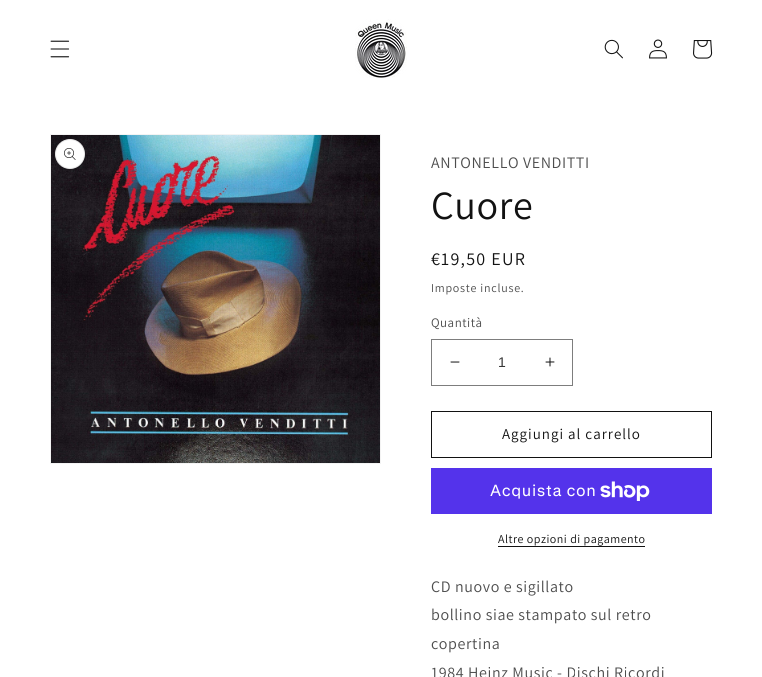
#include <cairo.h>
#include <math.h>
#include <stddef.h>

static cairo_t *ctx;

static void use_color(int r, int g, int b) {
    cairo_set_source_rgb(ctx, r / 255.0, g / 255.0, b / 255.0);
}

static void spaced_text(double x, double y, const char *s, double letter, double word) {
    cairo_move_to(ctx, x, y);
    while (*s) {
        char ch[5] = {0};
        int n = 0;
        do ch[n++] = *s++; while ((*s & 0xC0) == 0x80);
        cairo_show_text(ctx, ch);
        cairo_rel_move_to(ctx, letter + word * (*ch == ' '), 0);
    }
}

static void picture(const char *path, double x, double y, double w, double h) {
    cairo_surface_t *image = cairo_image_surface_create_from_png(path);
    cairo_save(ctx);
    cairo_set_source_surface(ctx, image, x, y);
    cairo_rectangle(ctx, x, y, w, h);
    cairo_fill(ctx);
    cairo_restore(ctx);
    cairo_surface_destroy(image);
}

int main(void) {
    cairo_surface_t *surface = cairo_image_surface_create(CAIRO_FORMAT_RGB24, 762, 677);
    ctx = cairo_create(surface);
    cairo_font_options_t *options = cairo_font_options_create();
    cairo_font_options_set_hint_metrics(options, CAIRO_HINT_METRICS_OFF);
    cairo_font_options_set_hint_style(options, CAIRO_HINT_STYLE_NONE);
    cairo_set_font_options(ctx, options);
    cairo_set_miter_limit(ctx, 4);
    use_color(255, 255, 255);
    cairo_paint(ctx);
    picture("img1.png", 50, 40, 20, 18);
    picture("img2.png", 355, 19, 52, 59);
    picture("img3.png", 604, 39, 19, 20);
    picture("img4.png", 649, 39, 18, 20);
    picture("img5.png", 693, 40, 20, 19);
    cairo_rectangle(ctx, 50.5, 134.5, 330, 329);
    use_color(243, 243, 243);
    cairo_set_line_width(ctx, 1);
    cairo_stroke(ctx);
    picture("img6.png", 51, 135, 329, 328);
    use_color(255, 255, 255);
    cairo_arc(ctx, 70, 154, 15, 0, 2 * M_PI);
    cairo_fill(ctx);
    cairo_arc(ctx, 70, 154, 14.5, 0, 2 * M_PI);
    cairo_set_source_rgba(ctx, 0.071, 0.071, 0.071, 0.1);
    cairo_stroke(ctx);
    picture("img7.png", 64, 148, 12, 12);
    cairo_select_font_face(ctx, "Assistant", CAIRO_FONT_SLANT_NORMAL, CAIRO_FONT_WEIGHT_NORMAL);
    cairo_set_font_size(ctx, 16);
    use_color(77, 77, 77);
    spaced_text(431, 168, "ANTONELLO VENDITTI", 0.6, 0);
    cairo_set_font_size(ctx, 40);
    use_color(18, 18, 18);
    spaced_text(431, 219, "Cuore", 0.6, 0);
    cairo_set_font_size(ctx, 18);
    spaced_text(431, 265, "€19,50 EUR", 1.25, 0);
    cairo_set_font_size(ctx, 12);
    use_color(77, 77, 77);
    spaced_text(431, 292, "Imposte incluse.", 0.75, 0);
    cairo_set_font_size(ctx, 13);
    spaced_text(431, 327, "Quantità", 0.5, 0);
    picture("img8.png", 450, 361, 10, 2);
    picture("img9.png", 545, 357, 10, 10);
    cairo_rectangle(ctx, 431.5, 339.5, 141, 46);
    use_color(125, 125, 125);
    cairo_stroke(ctx);
    cairo_select_font_face(ctx, "Liberation Sans", CAIRO_FONT_SLANT_NORMAL, CAIRO_FONT_WEIGHT_NORMAL);
    cairo_set_font_size(ctx, 14);
    use_color(54, 54, 54);
    cairo_move_to(ctx, 498, 367);
    cairo_show_text(ctx, "1");
    cairo_rectangle(ctx, 431.5, 411.5, 280, 46);
    use_color(18, 18, 18);
    cairo_stroke(ctx);
    cairo_select_font_face(ctx, "Assistant", CAIRO_FONT_SLANT_NORMAL, CAIRO_FONT_WEIGHT_NORMAL);
    cairo_set_font_size(ctx, 15);
    spaced_text(502, 439, "Aggiungi al carrello", 1, 0);
    use_color(84, 51, 235);
    cairo_rectangle(ctx, 431, 468, 281, 46);
    cairo_fill(ctx);
    cairo_select_font_face(ctx, "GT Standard", CAIRO_FONT_SLANT_NORMAL, CAIRO_FONT_WEIGHT_NORMAL);
    cairo_set_font_size(ctx, 16);
    use_color(255, 255, 255);
    spaced_text(490, 496, "Acquista con", 0.6, 0);
    picture("img10.png", 600, 481, 50, 20);
    cairo_select_font_face(ctx, "Assistant", CAIRO_FONT_SLANT_NORMAL, CAIRO_FONT_WEIGHT_NORMAL);
    cairo_set_font_size(ctx, 12);
    use_color(18, 18, 18);
    spaced_text(498, 543, "Altre opzioni di pagamento", 0.5, 0);
    cairo_rectangle(ctx, 498, 546, 147, 1);
    cairo_fill(ctx);
    cairo_set_font_size(ctx, 16);
    use_color(77, 77, 77);
    spaced_text(431, 592, "CD nuovo e sigillato", 0.6, 0);
    spaced_text(431, 620, "bollino siae stampato sul retro", 0.6, 0);
    spaced_text(431, 649, "copertina", 0.6, 0);
    spaced_text(431, 678, "1984 Heinz Music - Dischi Ricordi", 0.6, 0);
    cairo_surface_write_to_png(surface, "result.png");
    cairo_font_options_destroy(options);
    cairo_destroy(ctx);
    cairo_surface_destroy(surface);
    return 0;
}
